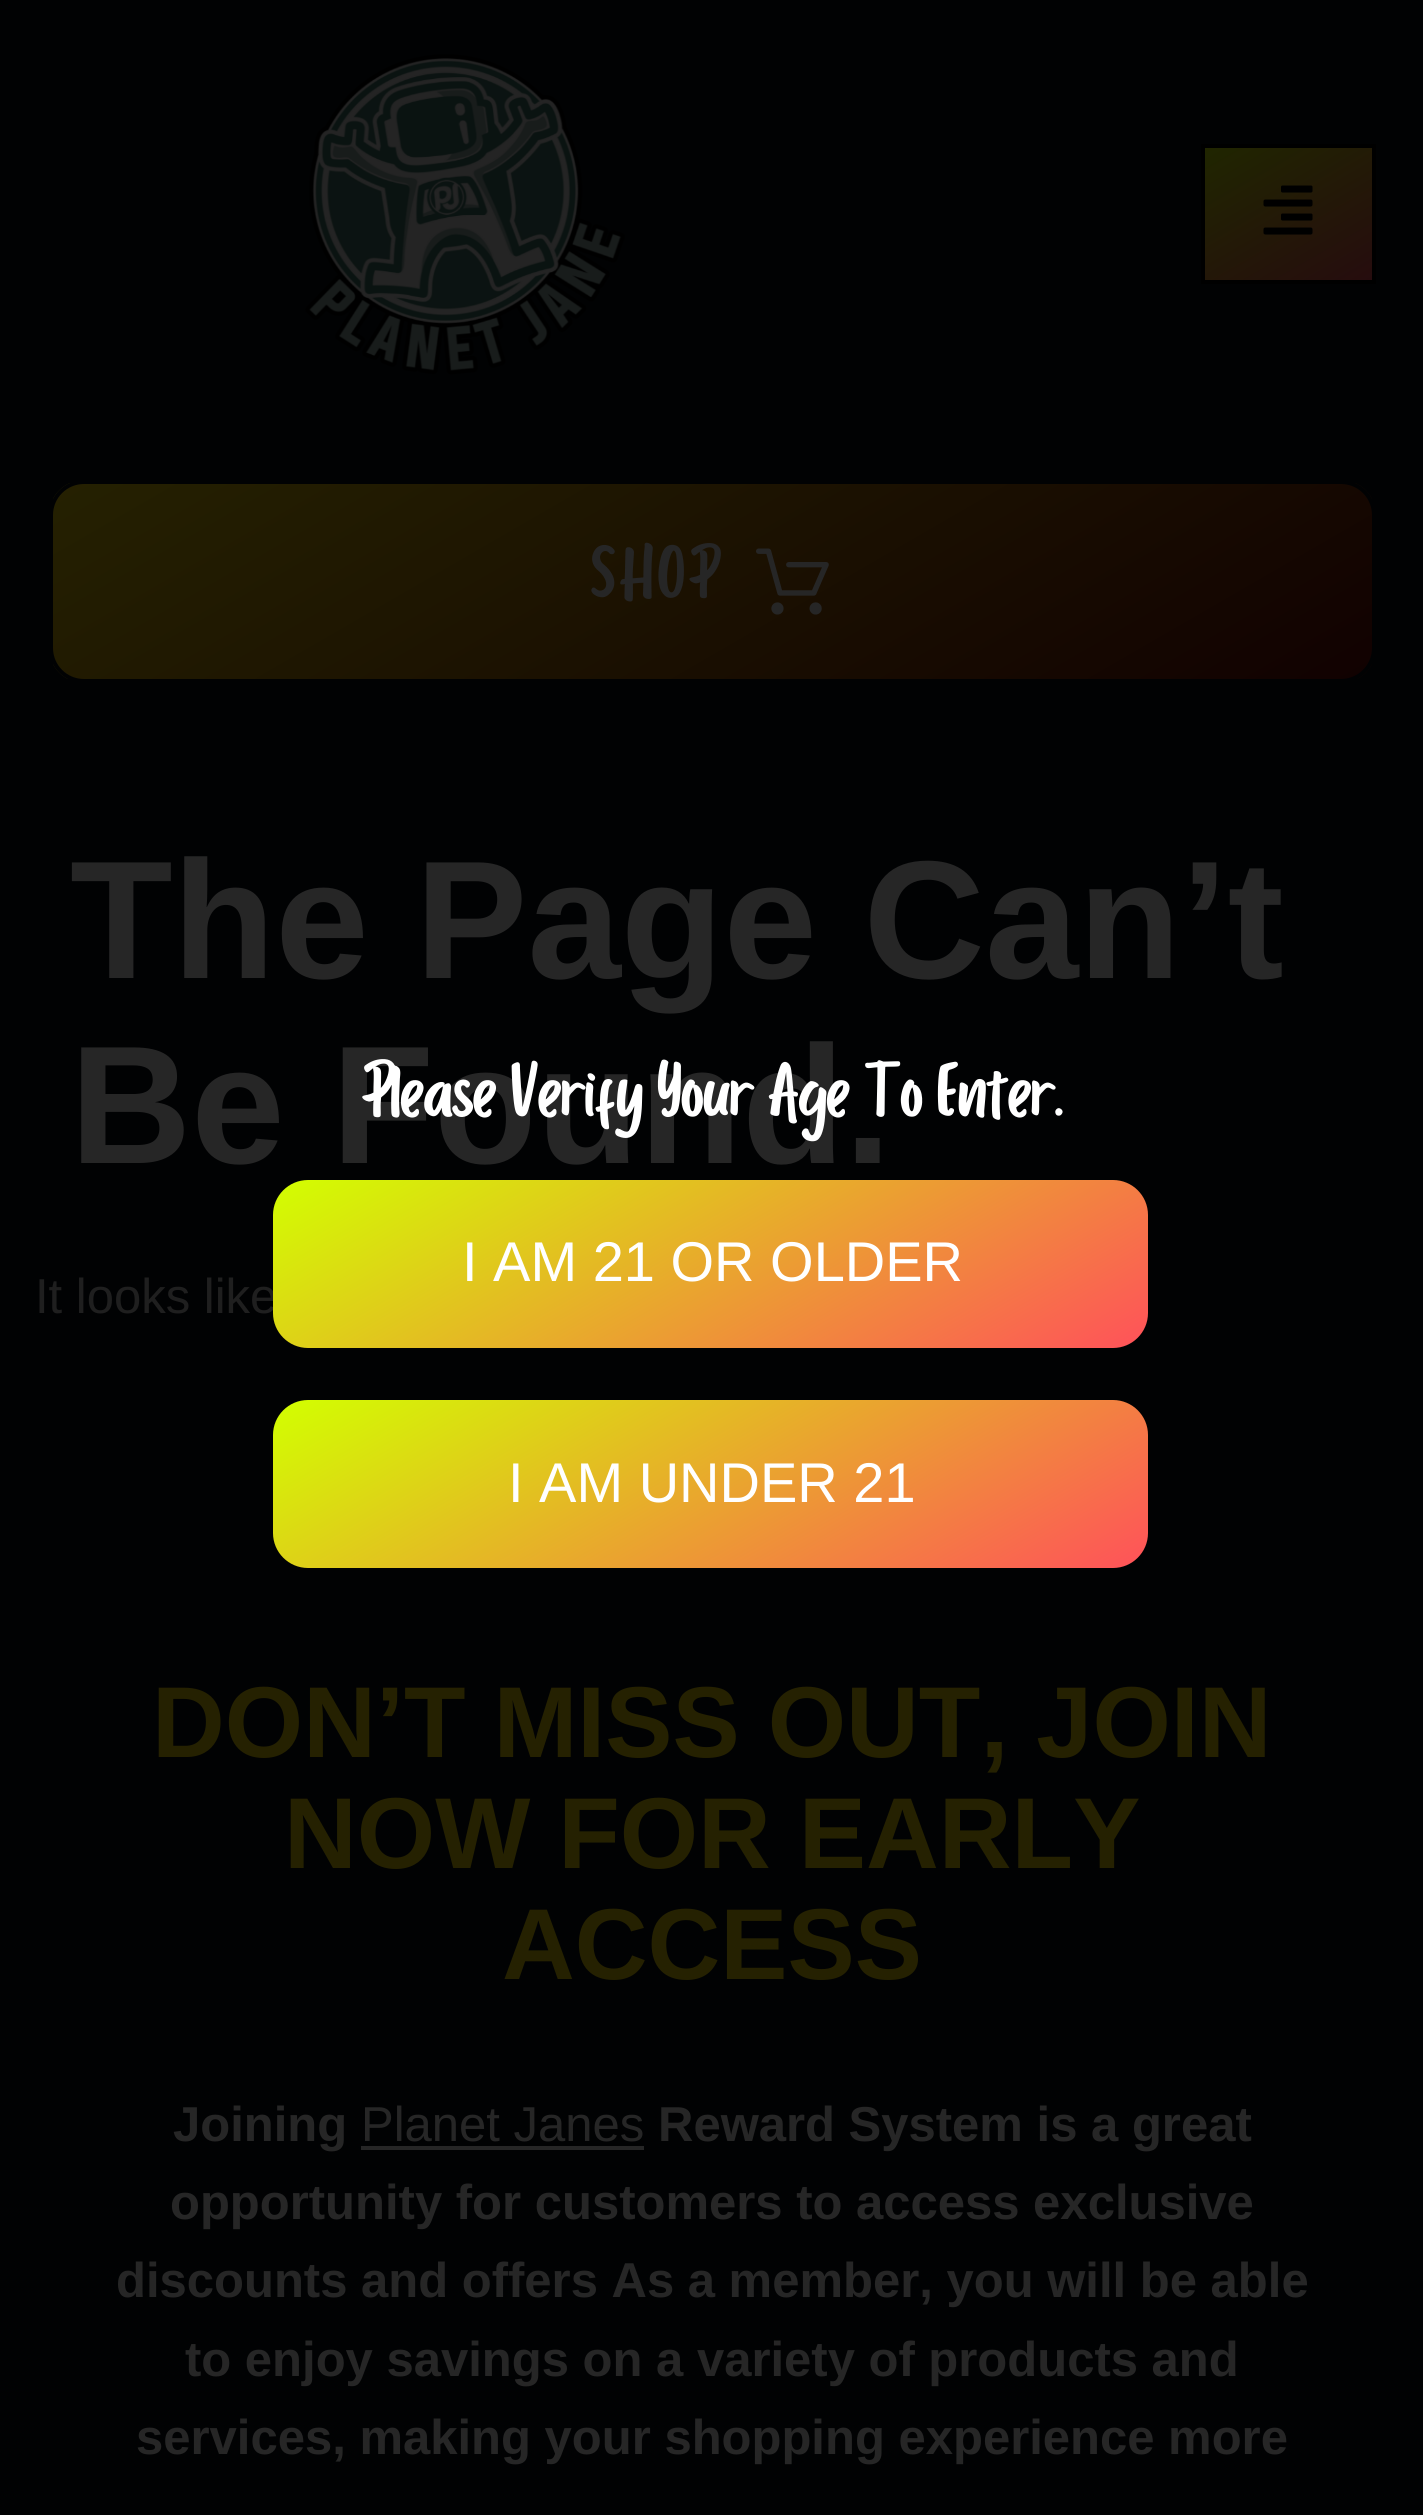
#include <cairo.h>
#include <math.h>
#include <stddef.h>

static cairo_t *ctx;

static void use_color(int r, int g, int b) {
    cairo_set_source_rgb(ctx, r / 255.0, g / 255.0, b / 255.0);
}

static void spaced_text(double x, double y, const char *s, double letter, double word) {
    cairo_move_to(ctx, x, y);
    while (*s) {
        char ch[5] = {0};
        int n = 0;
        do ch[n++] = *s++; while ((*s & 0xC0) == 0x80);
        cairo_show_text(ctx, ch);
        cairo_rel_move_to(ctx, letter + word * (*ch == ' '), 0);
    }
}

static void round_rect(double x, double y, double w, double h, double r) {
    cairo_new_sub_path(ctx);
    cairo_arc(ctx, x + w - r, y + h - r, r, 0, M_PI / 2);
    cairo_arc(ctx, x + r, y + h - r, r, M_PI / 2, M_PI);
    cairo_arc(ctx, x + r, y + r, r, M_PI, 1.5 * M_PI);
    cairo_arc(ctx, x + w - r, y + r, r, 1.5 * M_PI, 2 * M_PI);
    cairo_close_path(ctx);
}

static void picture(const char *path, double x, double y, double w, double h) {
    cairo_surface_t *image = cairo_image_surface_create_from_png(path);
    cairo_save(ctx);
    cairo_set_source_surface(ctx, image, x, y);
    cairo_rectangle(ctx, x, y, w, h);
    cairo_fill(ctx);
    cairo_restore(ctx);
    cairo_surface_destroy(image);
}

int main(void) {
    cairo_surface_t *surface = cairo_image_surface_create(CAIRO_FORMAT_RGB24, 1423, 2515);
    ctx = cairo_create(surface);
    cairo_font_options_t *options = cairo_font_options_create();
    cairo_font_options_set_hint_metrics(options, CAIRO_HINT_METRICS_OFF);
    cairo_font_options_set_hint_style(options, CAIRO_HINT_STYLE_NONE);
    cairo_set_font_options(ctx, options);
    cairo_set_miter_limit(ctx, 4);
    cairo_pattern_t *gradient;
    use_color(1, 2, 3);
    cairo_paint(ctx);
    picture("img1.png", 305, 54, 320, 321);
    gradient = cairo_pattern_create_linear(1238, 127, 1338, 300);
    cairo_pattern_add_color_stop_rgba(gradient, 0, 0.125, 0.149, 0, 1);
    cairo_pattern_add_color_stop_rgba(gradient, 1, 0.149, 0.047, 0.055, 1);
    cairo_set_source(ctx, gradient);
    cairo_pattern_destroy(gradient);
    cairo_rectangle(ctx, 1205, 148, 167, 132);
    cairo_fill(ctx);
    cairo_rectangle(ctx, 1203, 146, 171, 136);
    use_color(0, 0, 0);
    cairo_set_line_width(ctx, 4);
    cairo_stroke(ctx);
    picture("img2.png", 1263, 185, 50, 50);
    cairo_save(ctx);
    round_rect(49, 480, 1327, 203, 35);
    cairo_clip(ctx);
    gradient = cairo_pattern_create_linear(505, 222, 920, 940);
    cairo_pattern_add_color_stop_rgba(gradient, 0, 0.145, 0.129, 0.004, 1);
    cairo_pattern_add_color_stop_rgba(gradient, 1, 0.067, 0.004, 0.004, 1);
    cairo_set_source(ctx, gradient);
    cairo_pattern_destroy(gradient);
    cairo_rectangle(ctx, 53, 483, 1319, 196);
    cairo_fill(ctx);
    cairo_restore(ctx);
    round_rect(51, 482, 1323, 199, 33);
    use_color(1, 2, 3);
    cairo_stroke(ctx);
    cairo_select_font_face(ctx, "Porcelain", CAIRO_FONT_SLANT_NORMAL, CAIRO_FONT_WEIGHT_BOLD);
    cairo_set_font_size(ctx, 73);
    use_color(38, 38, 38);
    spaced_text(590, 597, "SHOP", 5, 0);
    picture("img3.png", 756, 548, 73, 67);
    cairo_select_font_face(ctx, "Liberation Sans", CAIRO_FONT_SLANT_NORMAL, CAIRO_FONT_WEIGHT_BOLD);
    cairo_set_font_size(ctx, 168);
    cairo_move_to(ctx, 70, 978);
    cairo_show_text(ctx, "The Page Can’t");
    cairo_move_to(ctx, 70, 1163);
    cairo_show_text(ctx, "Be Found.");
    cairo_select_font_face(ctx, "Liberation Sans", CAIRO_FONT_SLANT_NORMAL, CAIRO_FONT_WEIGHT_NORMAL);
    cairo_set_font_size(ctx, 49);
    use_color(31, 31, 31);
    cairo_move_to(ctx, 35, 1313);
    cairo_show_text(ctx, "It looks like");
    cairo_select_font_face(ctx, "Porcelain", CAIRO_FONT_SLANT_NORMAL, CAIRO_FONT_WEIGHT_BOLD);
    cairo_set_font_size(ctx, 77);
    use_color(255, 255, 255);
    cairo_move_to(ctx, 361, 1116);
    cairo_show_text(ctx, "Please Verify Your Age To Enter.");
    gradient = cairo_pattern_create_linear(565, 1012, 856, 1517);
    cairo_pattern_add_color_stop_rgba(gradient, 0, 0.824, 1, 0, 1);
    cairo_pattern_add_color_stop_rgba(gradient, 1, 1, 0.318, 0.353, 1);
    cairo_set_source(ctx, gradient);
    cairo_pattern_destroy(gradient);
    round_rect(273, 1180, 875, 168, 35);
    cairo_fill(ctx);
    cairo_select_font_face(ctx, "Liberation Sans", CAIRO_FONT_SLANT_NORMAL, CAIRO_FONT_WEIGHT_NORMAL);
    cairo_set_font_size(ctx, 56);
    use_color(255, 255, 255);
    cairo_move_to(ctx, 462, 1281);
    cairo_show_text(ctx, "I AM 21 OR OLDER");
    gradient = cairo_pattern_create_linear(565, 1233, 856, 1738);
    cairo_pattern_add_color_stop_rgba(gradient, 0, 0.824, 1, 0, 1);
    cairo_pattern_add_color_stop_rgba(gradient, 1, 1, 0.318, 0.353, 1);
    cairo_set_source(ctx, gradient);
    cairo_pattern_destroy(gradient);
    round_rect(273, 1400, 875, 168, 35);
    cairo_fill(ctx);
    use_color(255, 255, 255);
    cairo_move_to(ctx, 508, 1502);
    cairo_show_text(ctx, "I AM UNDER 21");
    cairo_select_font_face(ctx, "Liberation Sans", CAIRO_FONT_SLANT_NORMAL, CAIRO_FONT_WEIGHT_BOLD);
    cairo_set_font_size(ctx, 100.75);
    use_color(37, 33, 1);
    cairo_move_to(ctx, 152, 1757);
    cairo_show_text(ctx, "DON’T MISS OUT, JOIN");
    cairo_move_to(ctx, 284, 1868);
    cairo_show_text(ctx, "NOW FOR EARLY");
    cairo_move_to(ctx, 502, 1979);
    cairo_show_text(ctx, "ACCESS");
    cairo_set_font_size(ctx, 49);
    use_color(38, 38, 38);
    cairo_move_to(ctx, 173, 2141);
    cairo_show_text(ctx, "Joining");
    cairo_select_font_face(ctx, "Liberation Sans", CAIRO_FONT_SLANT_NORMAL, CAIRO_FONT_WEIGHT_NORMAL);
    cairo_move_to(ctx, 361, 2141);
    cairo_show_text(ctx, "Planet Janes");
    cairo_rectangle(ctx, 361, 2146, 283, 4);
    cairo_fill(ctx);
    cairo_select_font_face(ctx, "Liberation Sans", CAIRO_FONT_SLANT_NORMAL, CAIRO_FONT_WEIGHT_BOLD);
    cairo_move_to(ctx, 658, 2141);
    cairo_show_text(ctx, "Reward System is a great");
    cairo_move_to(ctx, 170, 2219);
    cairo_show_text(ctx, "opportunity for customers to access exclusive");
    cairo_move_to(ctx, 116, 2297);
    cairo_show_text(ctx, "discounts and offers As a member, you will be able");
    cairo_move_to(ctx, 185, 2376);
    cairo_show_text(ctx, "to enjoy savings on a variety of products and");
    cairo_move_to(ctx, 136, 2454);
    cairo_show_text(ctx, "services, making your shopping experience more");
    cairo_surface_write_to_png(surface, "result.png");
    cairo_font_options_destroy(options);
    cairo_destroy(ctx);
    cairo_surface_destroy(surface);
    return 0;
}
